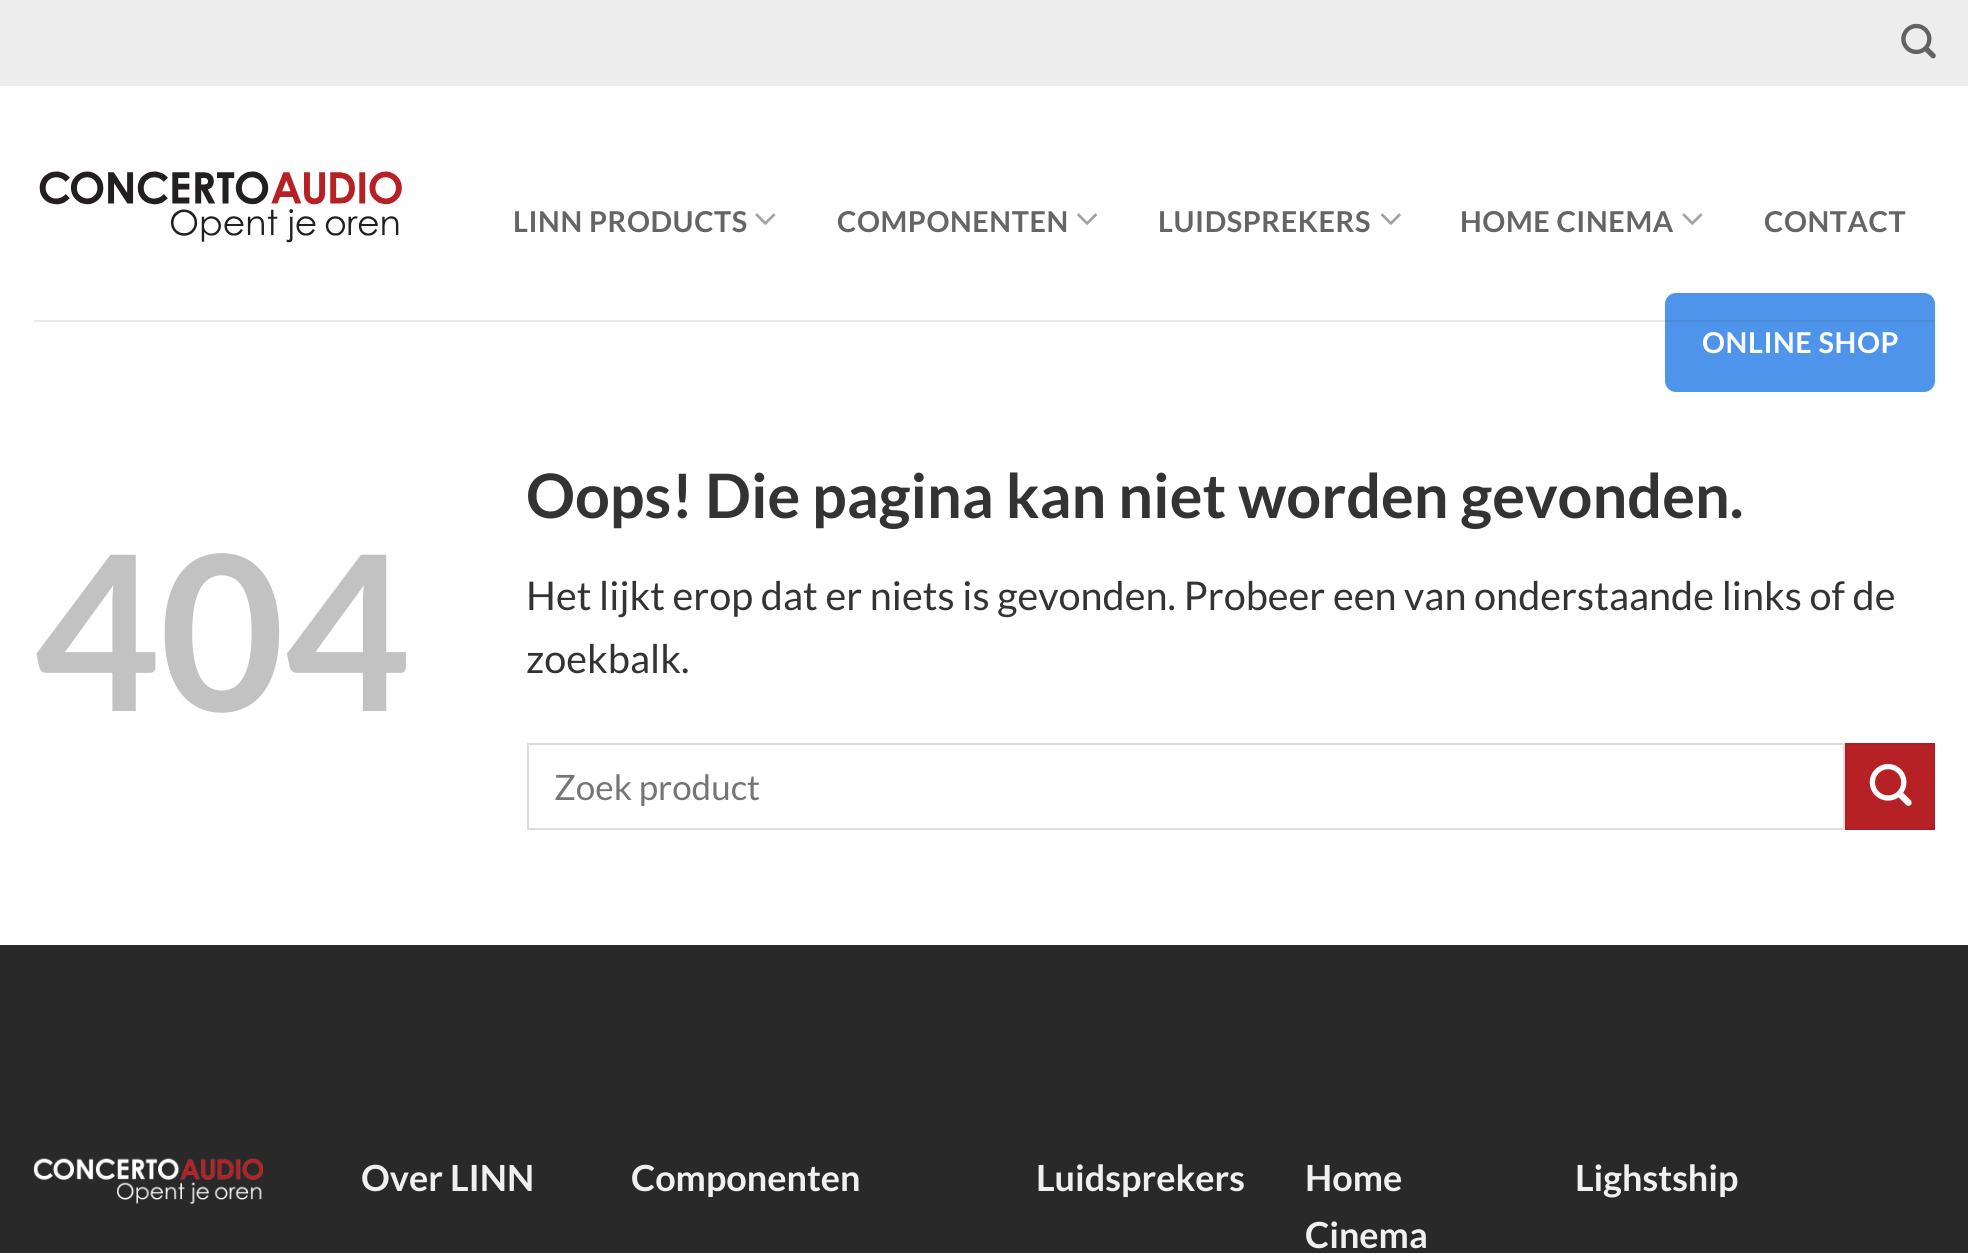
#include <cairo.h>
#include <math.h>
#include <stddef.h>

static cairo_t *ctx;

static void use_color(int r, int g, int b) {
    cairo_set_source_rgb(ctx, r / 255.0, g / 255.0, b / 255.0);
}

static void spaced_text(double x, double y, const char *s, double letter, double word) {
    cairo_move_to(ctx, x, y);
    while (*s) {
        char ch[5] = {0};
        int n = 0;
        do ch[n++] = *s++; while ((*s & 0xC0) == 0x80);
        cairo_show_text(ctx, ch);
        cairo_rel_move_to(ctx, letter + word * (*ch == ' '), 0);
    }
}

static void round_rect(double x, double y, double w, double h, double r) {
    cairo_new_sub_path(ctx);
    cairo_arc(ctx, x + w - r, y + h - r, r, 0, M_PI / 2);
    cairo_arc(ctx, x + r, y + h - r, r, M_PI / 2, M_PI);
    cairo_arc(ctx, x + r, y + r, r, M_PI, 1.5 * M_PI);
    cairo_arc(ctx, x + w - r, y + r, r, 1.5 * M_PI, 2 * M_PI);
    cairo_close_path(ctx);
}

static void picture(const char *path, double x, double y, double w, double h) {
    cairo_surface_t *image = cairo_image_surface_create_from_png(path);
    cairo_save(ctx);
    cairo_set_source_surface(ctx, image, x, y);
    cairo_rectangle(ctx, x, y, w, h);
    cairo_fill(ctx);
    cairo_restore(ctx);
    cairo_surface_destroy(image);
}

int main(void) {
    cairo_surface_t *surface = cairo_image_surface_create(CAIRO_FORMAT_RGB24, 1968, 1253);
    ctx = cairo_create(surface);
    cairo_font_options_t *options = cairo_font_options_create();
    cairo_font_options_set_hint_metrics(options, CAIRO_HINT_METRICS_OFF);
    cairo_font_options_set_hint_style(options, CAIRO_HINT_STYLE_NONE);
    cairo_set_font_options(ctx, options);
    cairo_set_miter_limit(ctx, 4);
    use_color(255, 255, 255);
    cairo_paint(ctx);
    use_color(235, 235, 235);
    cairo_rectangle(ctx, 34, 320, 1631, 2);
    cairo_fill(ctx);
    use_color(237, 237, 237);
    cairo_rectangle(ctx, 0, 0, 1968, 86);
    cairo_fill(ctx);
    picture("img1.png", 1901, 23, 35, 36);
    picture("img2.png", 39, 171, 363, 72);
    cairo_select_font_face(ctx, "Lato", CAIRO_FONT_SLANT_NORMAL, CAIRO_FONT_WEIGHT_BOLD);
    cairo_set_font_size(ctx, 28.75);
    use_color(101, 101, 101);
    spaced_text(513, 232, "LINN PRODUCTS", 0.6, 0);
    picture("img3.png", 755, 213, 21, 12);
    spaced_text(837, 232, "COMPONENTEN", 0.6, 0);
    picture("img4.png", 1077, 213, 20, 12);
    spaced_text(1158, 232, "LUIDSPREKERS", 0.6, 0);
    picture("img5.png", 1380, 213, 21, 12);
    spaced_text(1460, 232, "HOME CINEMA", 0.6, 0);
    picture("img3.png", 1682, 213, 21, 12);
    spaced_text(1764, 232, "CONTACT", 0.6, 0);
    use_color(78, 148, 234);
    round_rect(1665, 293, 270, 99, 11);
    cairo_fill(ctx);
    use_color(75, 138, 216);
    cairo_rectangle(ctx, 1665, 320, 270, 2);
    cairo_fill(ctx);
    use_color(255, 255, 255);
    spaced_text(1702, 353, "ONLINE SHOP", 0.6, 0);
    cairo_set_font_size(ctx, 216);
    use_color(194, 194, 194);
    cairo_move_to(ctx, 34, 711);
    cairo_show_text(ctx, "404");
    cairo_set_font_size(ctx, 61.25);
    use_color(51, 51, 51);
    cairo_move_to(ctx, 526, 518);
    cairo_show_text(ctx, "Oops! Die pagina kan niet worden gevonden.");
    cairo_select_font_face(ctx, "Lato", CAIRO_FONT_SLANT_NORMAL, CAIRO_FONT_WEIGHT_NORMAL);
    cairo_set_font_size(ctx, 39.6);
    cairo_move_to(ctx, 526, 610);
    cairo_show_text(ctx, "Het lijkt erop dat er niets is gevonden. Probeer een van onderstaande links of de");
    cairo_move_to(ctx, 526, 673);
    cairo_show_text(ctx, "zoekbalk.");
    cairo_rectangle(ctx, 528, 744, 1316, 85);
    use_color(221, 221, 221);
    cairo_stroke(ctx);
    cairo_set_font_size(ctx, 35);
    use_color(117, 117, 117);
    cairo_move_to(ctx, 554, 800);
    cairo_show_text(ctx, "Zoek product");
    use_color(182, 33, 38);
    cairo_rectangle(ctx, 1846, 744, 88, 85);
    cairo_fill_preserve(ctx);
    use_color(173, 31, 36);
    cairo_stroke(ctx);
    picture("img6.png", 1869, 764, 43, 42);
    use_color(41, 41, 41);
    cairo_rectangle(ctx, 0, 945, 1968, 308);
    cairo_fill(ctx);
    picture("img7.png", 33, 1158, 231, 46);
    cairo_select_font_face(ctx, "Lato", CAIRO_FONT_SLANT_NORMAL, CAIRO_FONT_WEIGHT_BOLD);
    cairo_set_font_size(ctx, 36);
    use_color(240, 240, 240);
    cairo_move_to(ctx, 361, 1191);
    cairo_show_text(ctx, "Over LINN");
    cairo_move_to(ctx, 631, 1191);
    cairo_show_text(ctx, "Componenten");
    cairo_move_to(ctx, 1036, 1191);
    cairo_show_text(ctx, "Luidsprekers");
    cairo_move_to(ctx, 1305, 1191);
    cairo_show_text(ctx, "Home");
    cairo_move_to(ctx, 1305, 1248);
    cairo_show_text(ctx, "Cinema");
    cairo_move_to(ctx, 1575, 1191);
    cairo_show_text(ctx, "Lighstship");
    cairo_surface_write_to_png(surface, "result.png");
    cairo_font_options_destroy(options);
    cairo_destroy(ctx);
    cairo_surface_destroy(surface);
    return 0;
}
